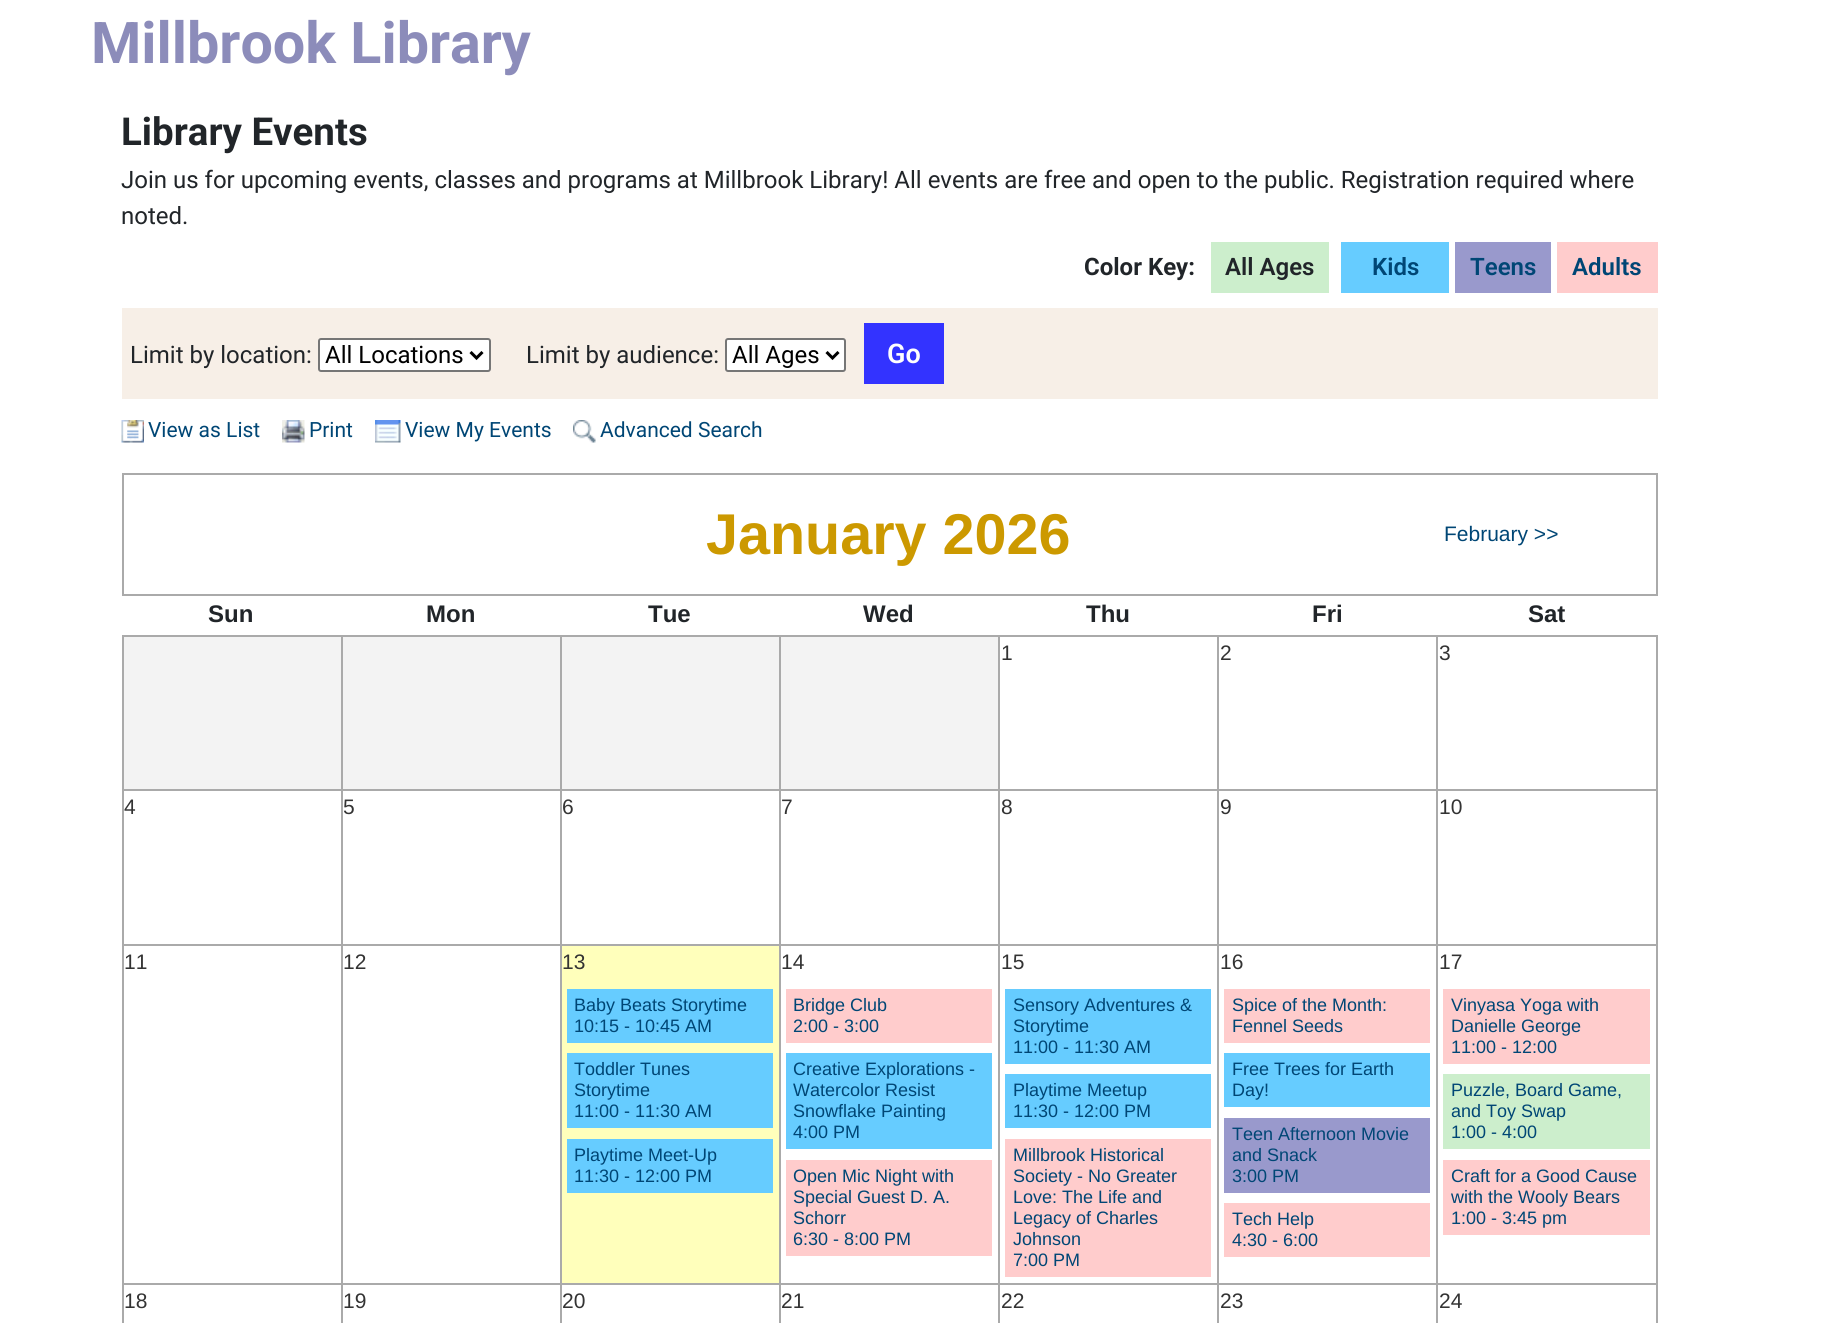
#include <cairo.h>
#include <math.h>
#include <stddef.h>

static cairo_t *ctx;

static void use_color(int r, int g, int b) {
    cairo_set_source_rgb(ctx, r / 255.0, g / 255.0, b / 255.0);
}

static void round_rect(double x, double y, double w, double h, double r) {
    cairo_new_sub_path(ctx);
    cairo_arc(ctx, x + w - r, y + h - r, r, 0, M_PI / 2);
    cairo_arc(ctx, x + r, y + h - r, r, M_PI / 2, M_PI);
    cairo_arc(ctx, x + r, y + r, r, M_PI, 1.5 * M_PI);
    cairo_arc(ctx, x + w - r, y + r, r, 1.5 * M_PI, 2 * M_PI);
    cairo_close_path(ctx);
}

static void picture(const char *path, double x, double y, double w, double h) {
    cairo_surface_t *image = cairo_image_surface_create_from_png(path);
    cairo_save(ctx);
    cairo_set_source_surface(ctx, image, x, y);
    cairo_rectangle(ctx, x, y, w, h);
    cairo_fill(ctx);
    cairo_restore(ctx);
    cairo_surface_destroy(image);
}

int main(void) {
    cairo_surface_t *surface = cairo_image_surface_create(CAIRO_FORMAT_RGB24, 1846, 1323);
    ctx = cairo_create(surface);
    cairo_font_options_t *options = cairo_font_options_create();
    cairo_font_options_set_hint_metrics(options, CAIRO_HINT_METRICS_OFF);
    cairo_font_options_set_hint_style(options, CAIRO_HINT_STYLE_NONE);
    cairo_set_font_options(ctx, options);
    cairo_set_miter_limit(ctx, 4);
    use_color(255, 255, 255);
    cairo_paint(ctx);
    cairo_select_font_face(ctx, "Roboto", CAIRO_FONT_SLANT_NORMAL, CAIRO_FONT_WEIGHT_BOLD);
    cairo_set_font_size(ctx, 57.5);
    use_color(140, 140, 186);
    cairo_move_to(ctx, 91, 63);
    cairo_show_text(ctx, "Millbrook Library");
    cairo_set_font_size(ctx, 38.5);
    use_color(33, 37, 41);
    cairo_move_to(ctx, 121, 145);
    cairo_show_text(ctx, "Library Events");
    cairo_select_font_face(ctx, "Roboto", CAIRO_FONT_SLANT_NORMAL, CAIRO_FONT_WEIGHT_NORMAL);
    cairo_set_font_size(ctx, 24);
    cairo_move_to(ctx, 121, 188);
    cairo_show_text(ctx, "Join us for upcoming events, classes and programs at Millbrook Library! All events are free and open to the public. Registration required where");
    cairo_move_to(ctx, 121, 224);
    cairo_show_text(ctx, "noted.");
    cairo_select_font_face(ctx, "Roboto", CAIRO_FONT_SLANT_NORMAL, CAIRO_FONT_WEIGHT_BOLD);
    cairo_move_to(ctx, 1084, 275);
    cairo_show_text(ctx, "Color Key:");
    use_color(204, 238, 204);
    cairo_rectangle(ctx, 1211, 242, 118, 51);
    cairo_fill(ctx);
    cairo_select_font_face(ctx, "Roboto SemiBold", CAIRO_FONT_SLANT_NORMAL, CAIRO_FONT_WEIGHT_NORMAL);
    use_color(33, 37, 41);
    cairo_move_to(ctx, 1225, 275);
    cairo_show_text(ctx, "All Ages");
    use_color(102, 204, 255);
    cairo_rectangle(ctx, 1341, 242, 108, 51);
    cairo_fill(ctx);
    use_color(0, 70, 117);
    cairo_move_to(ctx, 1372, 275);
    cairo_show_text(ctx, "Kids");
    use_color(153, 153, 204);
    cairo_rectangle(ctx, 1455, 242, 96, 51);
    cairo_fill(ctx);
    use_color(0, 70, 117);
    cairo_move_to(ctx, 1470, 275);
    cairo_show_text(ctx, "Teens");
    use_color(255, 204, 204);
    cairo_rectangle(ctx, 1557, 242, 101, 51);
    cairo_fill(ctx);
    use_color(0, 70, 117);
    cairo_move_to(ctx, 1572, 275);
    cairo_show_text(ctx, "Adults");
    use_color(247, 239, 231);
    cairo_rectangle(ctx, 122, 308, 1536, 91);
    cairo_fill(ctx);
    cairo_select_font_face(ctx, "Roboto", CAIRO_FONT_SLANT_NORMAL, CAIRO_FONT_WEIGHT_NORMAL);
    use_color(33, 37, 41);
    cairo_move_to(ctx, 130, 363);
    cairo_show_text(ctx, "Limit by location:");
    use_color(255, 255, 255);
    round_rect(319, 339, 171, 32, 2);
    cairo_fill_preserve(ctx);
    use_color(118, 118, 118);
    cairo_stroke(ctx);
    cairo_new_path(ctx);
    cairo_move_to(ctx, 470.5, 352);
    cairo_line_to(ctx, 476.5, 358);
    cairo_line_to(ctx, 482.5, 352);
    use_color(0, 0, 0);
    cairo_set_line_width(ctx, 3);
    cairo_stroke(ctx);
    cairo_move_to(ctx, 325, 363);
    cairo_show_text(ctx, "All Locations");
    use_color(33, 37, 41);
    cairo_move_to(ctx, 526, 363);
    cairo_show_text(ctx, "Limit by audience:");
    use_color(255, 255, 255);
    round_rect(726, 339, 119, 32, 2);
    cairo_fill_preserve(ctx);
    use_color(118, 118, 118);
    cairo_set_line_width(ctx, 2);
    cairo_stroke(ctx);
    cairo_new_path(ctx);
    cairo_move_to(ctx, 826.5, 352);
    cairo_line_to(ctx, 832.5, 358);
    cairo_line_to(ctx, 838.5, 352);
    use_color(0, 0, 0);
    cairo_set_line_width(ctx, 3);
    cairo_stroke(ctx);
    cairo_move_to(ctx, 732, 363);
    cairo_show_text(ctx, "All Ages");
    use_color(51, 51, 255);
    cairo_rectangle(ctx, 864, 323, 80, 61);
    cairo_fill(ctx);
    cairo_select_font_face(ctx, "Roboto SemiBold", CAIRO_FONT_SLANT_NORMAL, CAIRO_FONT_WEIGHT_NORMAL);
    cairo_set_font_size(ctx, 27);
    use_color(255, 255, 255);
    cairo_move_to(ctx, 887, 363);
    cairo_show_text(ctx, "Go");
    picture("img1.png", 121, 420, 23, 23);
    cairo_select_font_face(ctx, "Roboto", CAIRO_FONT_SLANT_NORMAL, CAIRO_FONT_WEIGHT_NORMAL);
    cairo_set_font_size(ctx, 21);
    use_color(0, 70, 117);
    cairo_move_to(ctx, 148, 437);
    cairo_show_text(ctx, "View as List");
    picture("img2.png", 282, 420, 23, 23);
    cairo_move_to(ctx, 309, 437);
    cairo_show_text(ctx, "Print");
    picture("img3.png", 375, 420, 26, 23);
    cairo_move_to(ctx, 405, 437);
    cairo_show_text(ctx, "View My Events");
    picture("img4.png", 573, 420, 23, 23);
    cairo_move_to(ctx, 600, 437);
    cairo_show_text(ctx, "Advanced Search");
    use_color(170, 170, 170);
    cairo_rectangle(ctx, 122, 473, 1536, 2);
    cairo_fill(ctx);
    cairo_rectangle(ctx, 1656, 473, 2, 123);
    cairo_fill(ctx);
    cairo_rectangle(ctx, 122, 594, 1536, 2);
    cairo_fill(ctx);
    cairo_rectangle(ctx, 122, 473, 2, 123);
    cairo_fill(ctx);
    cairo_select_font_face(ctx, "Liberation Sans", CAIRO_FONT_SLANT_NORMAL, CAIRO_FONT_WEIGHT_BOLD);
    cairo_set_font_size(ctx, 57.5);
    use_color(204, 153, 0);
    cairo_move_to(ctx, 706, 554);
    cairo_show_text(ctx, "January 2026");
    cairo_select_font_face(ctx, "Liberation Sans", CAIRO_FONT_SLANT_NORMAL, CAIRO_FONT_WEIGHT_NORMAL);
    cairo_set_font_size(ctx, 21);
    use_color(0, 70, 117);
    cairo_move_to(ctx, 1444, 541);
    cairo_show_text(ctx, "February >>");
    cairo_select_font_face(ctx, "Liberation Sans", CAIRO_FONT_SLANT_NORMAL, CAIRO_FONT_WEIGHT_BOLD);
    cairo_set_font_size(ctx, 24);
    use_color(33, 37, 41);
    cairo_move_to(ctx, 208, 622);
    cairo_show_text(ctx, "Sun");
    cairo_move_to(ctx, 426, 622);
    cairo_show_text(ctx, "Mon");
    cairo_move_to(ctx, 648, 622);
    cairo_show_text(ctx, "Tue");
    cairo_move_to(ctx, 863, 622);
    cairo_show_text(ctx, "Wed");
    cairo_move_to(ctx, 1086, 622);
    cairo_show_text(ctx, "Thu");
    cairo_move_to(ctx, 1312, 622);
    cairo_show_text(ctx, "Fri");
    cairo_move_to(ctx, 1528, 622);
    cairo_show_text(ctx, "Sat");
    use_color(243, 243, 243);
    cairo_rectangle(ctx, 124, 637, 217, 152);
    cairo_fill(ctx);
    use_color(170, 170, 170);
    cairo_rectangle(ctx, 1436, 635, 222, 2);
    cairo_fill(ctx);
    cairo_rectangle(ctx, 1436, 789, 222, 2);
    cairo_fill(ctx);
    cairo_rectangle(ctx, 1436, 944, 222, 2);
    cairo_fill(ctx);
    cairo_rectangle(ctx, 1436, 1283, 222, 2);
    cairo_fill(ctx);
    cairo_rectangle(ctx, 1436, 1283, 2, 40);
    cairo_fill(ctx);
    cairo_rectangle(ctx, 1217, 1283, 220, 2);
    cairo_fill(ctx);
    cairo_rectangle(ctx, 1436, 944, 2, 340);
    cairo_fill(ctx);
    cairo_rectangle(ctx, 1217, 944, 220, 2);
    cairo_fill(ctx);
    cairo_rectangle(ctx, 1436, 789, 2, 156);
    cairo_fill(ctx);
    cairo_rectangle(ctx, 1217, 789, 220, 2);
    cairo_fill(ctx);
    cairo_rectangle(ctx, 1436, 635, 2, 156);
    cairo_fill(ctx);
    cairo_rectangle(ctx, 1217, 635, 220, 2);
    cairo_fill(ctx);
    cairo_rectangle(ctx, 1217, 1283, 2, 40);
    cairo_fill(ctx);
    cairo_rectangle(ctx, 998, 1283, 220, 2);
    cairo_fill(ctx);
    cairo_rectangle(ctx, 1217, 944, 2, 340);
    cairo_fill(ctx);
    cairo_rectangle(ctx, 998, 944, 220, 2);
    cairo_fill(ctx);
    cairo_rectangle(ctx, 1217, 789, 2, 156);
    cairo_fill(ctx);
    cairo_rectangle(ctx, 998, 789, 220, 2);
    cairo_fill(ctx);
    cairo_rectangle(ctx, 1217, 635, 2, 156);
    cairo_fill(ctx);
    cairo_rectangle(ctx, 998, 635, 220, 2);
    cairo_fill(ctx);
    cairo_rectangle(ctx, 998, 1283, 2, 40);
    cairo_fill(ctx);
    cairo_rectangle(ctx, 779, 1283, 220, 2);
    cairo_fill(ctx);
    cairo_rectangle(ctx, 998, 944, 2, 340);
    cairo_fill(ctx);
    cairo_rectangle(ctx, 779, 944, 220, 2);
    cairo_fill(ctx);
    cairo_rectangle(ctx, 998, 789, 2, 156);
    cairo_fill(ctx);
    cairo_rectangle(ctx, 779, 789, 220, 2);
    cairo_fill(ctx);
    cairo_rectangle(ctx, 998, 635, 2, 156);
    cairo_fill(ctx);
    cairo_rectangle(ctx, 779, 635, 220, 2);
    cairo_fill(ctx);
    cairo_rectangle(ctx, 779, 1283, 2, 40);
    cairo_fill(ctx);
    cairo_rectangle(ctx, 560, 1283, 220, 2);
    cairo_fill(ctx);
    cairo_rectangle(ctx, 779, 944, 2, 340);
    cairo_fill(ctx);
    cairo_rectangle(ctx, 560, 944, 220, 2);
    cairo_fill(ctx);
    cairo_rectangle(ctx, 779, 789, 2, 156);
    cairo_fill(ctx);
    cairo_rectangle(ctx, 560, 789, 220, 2);
    cairo_fill(ctx);
    cairo_rectangle(ctx, 779, 635, 2, 156);
    cairo_fill(ctx);
    cairo_rectangle(ctx, 560, 635, 220, 2);
    cairo_fill(ctx);
    cairo_rectangle(ctx, 560, 1283, 2, 40);
    cairo_fill(ctx);
    cairo_rectangle(ctx, 341, 1283, 220, 2);
    cairo_fill(ctx);
    cairo_rectangle(ctx, 560, 944, 2, 340);
    cairo_fill(ctx);
    cairo_rectangle(ctx, 341, 944, 220, 2);
    cairo_fill(ctx);
    cairo_rectangle(ctx, 560, 789, 2, 156);
    cairo_fill(ctx);
    cairo_rectangle(ctx, 341, 789, 220, 2);
    cairo_fill(ctx);
    cairo_rectangle(ctx, 560, 635, 2, 156);
    cairo_fill(ctx);
    cairo_rectangle(ctx, 341, 635, 220, 2);
    cairo_fill(ctx);
    cairo_rectangle(ctx, 341, 1283, 2, 40);
    cairo_fill(ctx);
    cairo_rectangle(ctx, 122, 1283, 220, 2);
    cairo_fill(ctx);
    cairo_rectangle(ctx, 341, 944, 2, 340);
    cairo_fill(ctx);
    cairo_rectangle(ctx, 122, 944, 220, 2);
    cairo_fill(ctx);
    cairo_rectangle(ctx, 341, 789, 2, 156);
    cairo_fill(ctx);
    cairo_rectangle(ctx, 122, 789, 220, 2);
    cairo_fill(ctx);
    cairo_rectangle(ctx, 341, 635, 2, 156);
    cairo_fill(ctx);
    cairo_rectangle(ctx, 122, 635, 220, 2);
    cairo_fill(ctx);
    cairo_rectangle(ctx, 122, 1283, 2, 40);
    cairo_fill(ctx);
    cairo_rectangle(ctx, 122, 944, 2, 340);
    cairo_fill(ctx);
    cairo_rectangle(ctx, 122, 789, 2, 156);
    cairo_fill(ctx);
    cairo_rectangle(ctx, 122, 635, 2, 156);
    cairo_fill(ctx);
    use_color(243, 243, 243);
    cairo_rectangle(ctx, 343, 637, 217, 152);
    cairo_fill(ctx);
    cairo_rectangle(ctx, 562, 637, 217, 152);
    cairo_fill(ctx);
    cairo_rectangle(ctx, 781, 637, 217, 152);
    cairo_fill(ctx);
    cairo_select_font_face(ctx, "Liberation Sans", CAIRO_FONT_SLANT_NORMAL, CAIRO_FONT_WEIGHT_NORMAL);
    cairo_set_font_size(ctx, 21);
    use_color(51, 51, 51);
    cairo_move_to(ctx, 1001, 660);
    cairo_show_text(ctx, "1");
    cairo_move_to(ctx, 1220, 660);
    cairo_show_text(ctx, "2");
    use_color(170, 170, 170);
    cairo_rectangle(ctx, 1656, 1283, 2, 40);
    cairo_fill(ctx);
    cairo_rectangle(ctx, 1656, 944, 2, 340);
    cairo_fill(ctx);
    cairo_rectangle(ctx, 1656, 789, 2, 156);
    cairo_fill(ctx);
    cairo_rectangle(ctx, 1656, 635, 2, 156);
    cairo_fill(ctx);
    use_color(51, 51, 51);
    cairo_move_to(ctx, 1439, 660);
    cairo_show_text(ctx, "3");
    cairo_move_to(ctx, 124, 814);
    cairo_show_text(ctx, "4");
    cairo_move_to(ctx, 343, 814);
    cairo_show_text(ctx, "5");
    cairo_move_to(ctx, 562, 814);
    cairo_show_text(ctx, "6");
    cairo_move_to(ctx, 781, 814);
    cairo_show_text(ctx, "7");
    cairo_move_to(ctx, 1001, 814);
    cairo_show_text(ctx, "8");
    cairo_move_to(ctx, 1220, 814);
    cairo_show_text(ctx, "9");
    cairo_move_to(ctx, 1439, 814);
    cairo_show_text(ctx, "10");
    cairo_move_to(ctx, 124, 969);
    cairo_show_text(ctx, "11");
    cairo_move_to(ctx, 343, 969);
    cairo_show_text(ctx, "12");
    use_color(255, 255, 187);
    cairo_rectangle(ctx, 562, 946, 217, 337);
    cairo_fill(ctx);
    use_color(51, 51, 51);
    cairo_move_to(ctx, 562, 969);
    cairo_show_text(ctx, "13");
    use_color(102, 204, 255);
    cairo_rectangle(ctx, 567, 989, 206, 54);
    cairo_fill(ctx);
    cairo_set_font_size(ctx, 18);
    use_color(0, 70, 117);
    cairo_move_to(ctx, 574, 1011);
    cairo_show_text(ctx, "Baby Beats Storytime");
    cairo_move_to(ctx, 574, 1032);
    cairo_show_text(ctx, "10:15 - 10:45 AM");
    use_color(102, 204, 255);
    cairo_rectangle(ctx, 567, 1053, 206, 75);
    cairo_fill(ctx);
    use_color(0, 70, 117);
    cairo_move_to(ctx, 574, 1075);
    cairo_show_text(ctx, "Toddler Tunes");
    cairo_move_to(ctx, 574, 1096);
    cairo_show_text(ctx, "Storytime");
    cairo_move_to(ctx, 574, 1117);
    cairo_show_text(ctx, "11:00 - 11:30 AM");
    use_color(102, 204, 255);
    cairo_rectangle(ctx, 567, 1139, 206, 54);
    cairo_fill(ctx);
    use_color(0, 70, 117);
    cairo_move_to(ctx, 574, 1161);
    cairo_show_text(ctx, "Playtime Meet-Up");
    cairo_move_to(ctx, 574, 1182);
    cairo_show_text(ctx, "11:30 - 12:00 PM");
    cairo_set_font_size(ctx, 21);
    use_color(51, 51, 51);
    cairo_move_to(ctx, 781, 969);
    cairo_show_text(ctx, "14");
    use_color(255, 204, 204);
    cairo_rectangle(ctx, 786, 989, 206, 54);
    cairo_fill(ctx);
    cairo_set_font_size(ctx, 18);
    use_color(0, 70, 117);
    cairo_move_to(ctx, 793, 1011);
    cairo_show_text(ctx, "Bridge Club");
    cairo_move_to(ctx, 793, 1032);
    cairo_show_text(ctx, "2:00 - 3:00");
    use_color(102, 204, 255);
    cairo_rectangle(ctx, 786, 1053, 206, 96);
    cairo_fill(ctx);
    use_color(0, 70, 117);
    cairo_move_to(ctx, 793, 1075);
    cairo_show_text(ctx, "Creative Explorations -");
    cairo_move_to(ctx, 793, 1096);
    cairo_show_text(ctx, "Watercolor Resist");
    cairo_move_to(ctx, 793, 1117);
    cairo_show_text(ctx, "Snowflake Painting");
    cairo_move_to(ctx, 793, 1138);
    cairo_show_text(ctx, "4:00 PM");
    use_color(255, 204, 204);
    cairo_rectangle(ctx, 786, 1160, 206, 96);
    cairo_fill(ctx);
    use_color(0, 70, 117);
    cairo_move_to(ctx, 793, 1182);
    cairo_show_text(ctx, "Open Mic Night with");
    cairo_move_to(ctx, 793, 1203);
    cairo_show_text(ctx, "Special Guest D. A.");
    cairo_move_to(ctx, 793, 1224);
    cairo_show_text(ctx, "Schorr");
    cairo_move_to(ctx, 793, 1245);
    cairo_show_text(ctx, "6:30 - 8:00 PM");
    cairo_set_font_size(ctx, 21);
    use_color(51, 51, 51);
    cairo_move_to(ctx, 1001, 969);
    cairo_show_text(ctx, "15");
    use_color(102, 204, 255);
    cairo_rectangle(ctx, 1005, 989, 206, 75);
    cairo_fill(ctx);
    cairo_set_font_size(ctx, 18);
    use_color(0, 70, 117);
    cairo_move_to(ctx, 1013, 1011);
    cairo_show_text(ctx, "Sensory Adventures &");
    cairo_move_to(ctx, 1013, 1032);
    cairo_show_text(ctx, "Storytime");
    cairo_move_to(ctx, 1013, 1053);
    cairo_show_text(ctx, "11:00 - 11:30 AM");
    use_color(102, 204, 255);
    cairo_rectangle(ctx, 1005, 1074, 206, 54);
    cairo_fill(ctx);
    use_color(0, 70, 117);
    cairo_move_to(ctx, 1013, 1096);
    cairo_show_text(ctx, "Playtime Meetup");
    cairo_move_to(ctx, 1013, 1117);
    cairo_show_text(ctx, "11:30 - 12:00 PM");
    use_color(255, 204, 204);
    cairo_rectangle(ctx, 1005, 1139, 206, 138);
    cairo_fill(ctx);
    use_color(0, 70, 117);
    cairo_move_to(ctx, 1013, 1161);
    cairo_show_text(ctx, "Millbrook Historical");
    cairo_move_to(ctx, 1013, 1182);
    cairo_show_text(ctx, "Society - No Greater");
    cairo_move_to(ctx, 1013, 1203);
    cairo_show_text(ctx, "Love: The Life and");
    cairo_move_to(ctx, 1013, 1224);
    cairo_show_text(ctx, "Legacy of Charles");
    cairo_move_to(ctx, 1013, 1245);
    cairo_show_text(ctx, "Johnson");
    cairo_move_to(ctx, 1013, 1266);
    cairo_show_text(ctx, "7:00 PM");
    cairo_set_font_size(ctx, 21);
    use_color(51, 51, 51);
    cairo_move_to(ctx, 1220, 969);
    cairo_show_text(ctx, "16");
    use_color(255, 204, 204);
    cairo_rectangle(ctx, 1224, 989, 206, 54);
    cairo_fill(ctx);
    cairo_set_font_size(ctx, 18);
    use_color(0, 70, 117);
    cairo_move_to(ctx, 1232, 1011);
    cairo_show_text(ctx, "Spice of the Month:");
    cairo_move_to(ctx, 1232, 1032);
    cairo_show_text(ctx, "Fennel Seeds");
    use_color(102, 204, 255);
    cairo_rectangle(ctx, 1224, 1053, 206, 54);
    cairo_fill(ctx);
    use_color(0, 70, 117);
    cairo_move_to(ctx, 1232, 1075);
    cairo_show_text(ctx, "Free Trees for Earth");
    cairo_move_to(ctx, 1232, 1096);
    cairo_show_text(ctx, "Day!");
    use_color(153, 153, 204);
    cairo_rectangle(ctx, 1224, 1118, 206, 75);
    cairo_fill(ctx);
    use_color(0, 70, 117);
    cairo_move_to(ctx, 1232, 1140);
    cairo_show_text(ctx, "Teen Afternoon Movie");
    cairo_move_to(ctx, 1232, 1161);
    cairo_show_text(ctx, "and Snack");
    cairo_move_to(ctx, 1232, 1182);
    cairo_show_text(ctx, "3:00 PM");
    use_color(255, 204, 204);
    cairo_rectangle(ctx, 1224, 1203, 206, 54);
    cairo_fill(ctx);
    use_color(0, 70, 117);
    cairo_move_to(ctx, 1232, 1225);
    cairo_show_text(ctx, "Tech Help");
    cairo_move_to(ctx, 1232, 1246);
    cairo_show_text(ctx, "4:30 - 6:00");
    cairo_set_font_size(ctx, 21);
    use_color(51, 51, 51);
    cairo_move_to(ctx, 1439, 969);
    cairo_show_text(ctx, "17");
    use_color(255, 204, 204);
    cairo_rectangle(ctx, 1443, 989, 207, 75);
    cairo_fill(ctx);
    cairo_set_font_size(ctx, 18);
    use_color(0, 70, 117);
    cairo_move_to(ctx, 1451, 1011);
    cairo_show_text(ctx, "Vinyasa Yoga with");
    cairo_move_to(ctx, 1451, 1032);
    cairo_show_text(ctx, "Danielle George");
    cairo_move_to(ctx, 1451, 1053);
    cairo_show_text(ctx, "11:00 - 12:00");
    use_color(204, 238, 204);
    cairo_rectangle(ctx, 1443, 1074, 207, 75);
    cairo_fill(ctx);
    use_color(0, 70, 117);
    cairo_move_to(ctx, 1451, 1096);
    cairo_show_text(ctx, "Puzzle, Board Game,");
    cairo_move_to(ctx, 1451, 1117);
    cairo_show_text(ctx, "and Toy Swap");
    cairo_move_to(ctx, 1451, 1138);
    cairo_show_text(ctx, "1:00 - 4:00");
    use_color(255, 204, 204);
    cairo_rectangle(ctx, 1443, 1160, 207, 75);
    cairo_fill(ctx);
    use_color(0, 70, 117);
    cairo_move_to(ctx, 1451, 1182);
    cairo_show_text(ctx, "Craft for a Good Cause");
    cairo_move_to(ctx, 1451, 1203);
    cairo_show_text(ctx, "with the Wooly Bears");
    cairo_move_to(ctx, 1451, 1224);
    cairo_show_text(ctx, "1:00 - 3:45 pm");
    cairo_set_font_size(ctx, 21);
    use_color(51, 51, 51);
    cairo_move_to(ctx, 124, 1308);
    cairo_show_text(ctx, "18");
    cairo_move_to(ctx, 343, 1308);
    cairo_show_text(ctx, "19");
    cairo_move_to(ctx, 562, 1308);
    cairo_show_text(ctx, "20");
    cairo_move_to(ctx, 781, 1308);
    cairo_show_text(ctx, "21");
    cairo_move_to(ctx, 1001, 1308);
    cairo_show_text(ctx, "22");
    cairo_move_to(ctx, 1220, 1308);
    cairo_show_text(ctx, "23");
    cairo_move_to(ctx, 1439, 1308);
    cairo_show_text(ctx, "24");
    cairo_surface_write_to_png(surface, "result.png");
    cairo_font_options_destroy(options);
    cairo_destroy(ctx);
    cairo_surface_destroy(surface);
    return 0;
}
